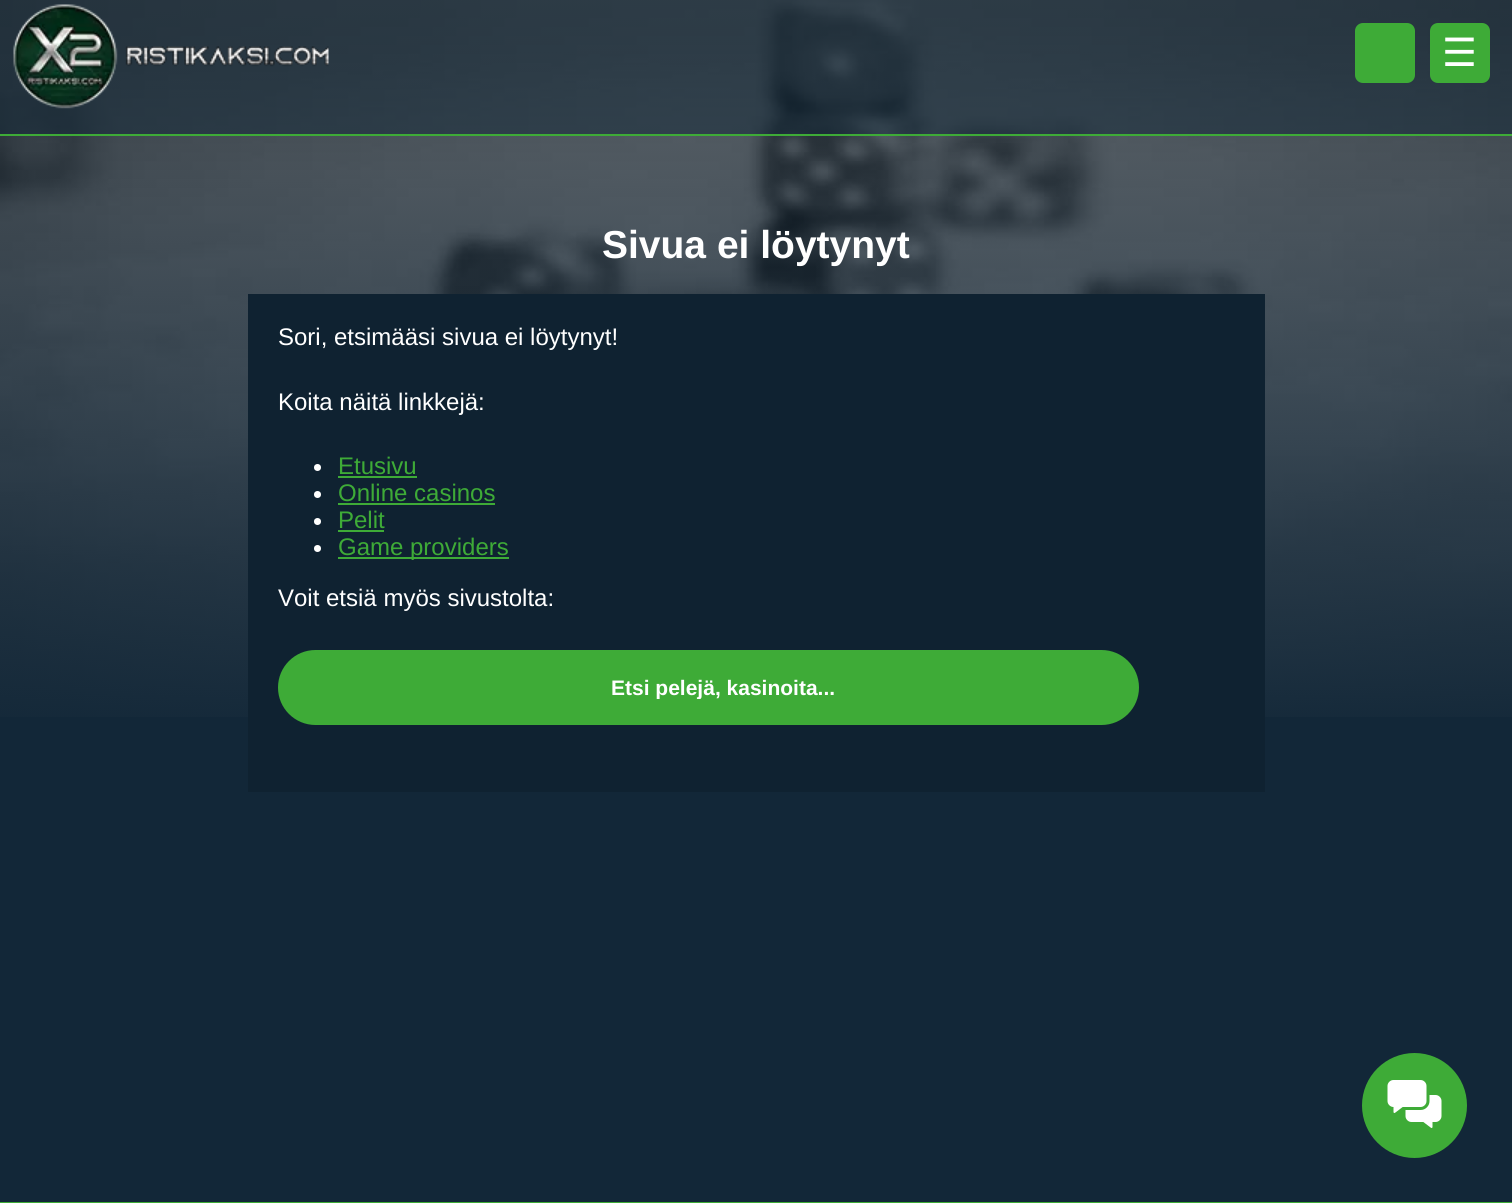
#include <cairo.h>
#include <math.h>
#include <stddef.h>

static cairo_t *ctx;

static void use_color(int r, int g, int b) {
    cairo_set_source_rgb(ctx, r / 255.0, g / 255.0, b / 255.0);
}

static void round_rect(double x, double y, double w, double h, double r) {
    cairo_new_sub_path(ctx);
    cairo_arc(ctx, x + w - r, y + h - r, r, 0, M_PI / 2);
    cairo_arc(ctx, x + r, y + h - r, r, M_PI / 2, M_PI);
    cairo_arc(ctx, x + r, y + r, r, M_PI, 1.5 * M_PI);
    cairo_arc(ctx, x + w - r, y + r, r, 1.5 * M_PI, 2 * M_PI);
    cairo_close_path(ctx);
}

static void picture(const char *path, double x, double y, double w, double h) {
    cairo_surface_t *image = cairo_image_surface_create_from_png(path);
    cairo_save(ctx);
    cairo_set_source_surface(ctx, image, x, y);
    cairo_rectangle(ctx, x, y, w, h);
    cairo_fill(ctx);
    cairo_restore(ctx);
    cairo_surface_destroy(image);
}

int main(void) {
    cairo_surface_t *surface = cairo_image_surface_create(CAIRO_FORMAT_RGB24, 1512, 1203);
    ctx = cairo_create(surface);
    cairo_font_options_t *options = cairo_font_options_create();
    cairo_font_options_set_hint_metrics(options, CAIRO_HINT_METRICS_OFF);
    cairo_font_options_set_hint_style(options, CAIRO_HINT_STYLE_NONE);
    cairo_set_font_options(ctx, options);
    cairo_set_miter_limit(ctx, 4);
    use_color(18, 39, 56);
    cairo_paint(ctx);
    picture("img1.png", 0, 0, 1512, 717);
    cairo_set_source_rgba(ctx, 0.067, 0.149, 0.216, 0.5);
    cairo_rectangle(ctx, 0, 0, 1512, 134);
    cairo_fill(ctx);
    use_color(62, 171, 55);
    cairo_rectangle(ctx, 0, 134, 1512, 2);
    cairo_fill(ctx);
    picture("img2.png", 13, 4, 316, 105);
    round_rect(1355, 23, 60, 60, 8);
    cairo_fill(ctx);
    round_rect(1430, 23, 60, 60, 8);
    cairo_fill(ctx);
    cairo_select_font_face(ctx, "DejaVu Sans", CAIRO_FONT_SLANT_NORMAL, CAIRO_FONT_WEIGHT_NORMAL);
    cairo_set_font_size(ctx, 39);
    use_color(255, 255, 255);
    cairo_move_to(ctx, 1442, 66);
    cairo_show_text(ctx, "☰");
    use_color(62, 171, 55);
    cairo_rectangle(ctx, 0, 1202, 1512, 1);
    cairo_fill(ctx);
    cairo_select_font_face(ctx, "Liberation Sans", CAIRO_FONT_SLANT_NORMAL, CAIRO_FONT_WEIGHT_BOLD);
    use_color(255, 255, 255);
    cairo_move_to(ctx, 602, 258);
    cairo_show_text(ctx, "Sivua ei löytynyt");
    use_color(15, 34, 49);
    cairo_rectangle(ctx, 248, 294, 1017, 498);
    cairo_fill(ctx);
    cairo_select_font_face(ctx, "Liberation Sans", CAIRO_FONT_SLANT_NORMAL, CAIRO_FONT_WEIGHT_NORMAL);
    cairo_set_font_size(ctx, 24);
    use_color(255, 255, 255);
    cairo_move_to(ctx, 278, 345);
    cairo_show_text(ctx, "Sori, etsimääsi sivua ei löytynyt!");
    cairo_move_to(ctx, 278, 410);
    cairo_show_text(ctx, "Koita näitä linkkejä:");
    cairo_new_path(ctx);
    cairo_arc(ctx, 317.5, 467.5, 3.5, 0, 2 * M_PI);
    cairo_fill(ctx);
    use_color(62, 171, 55);
    cairo_move_to(ctx, 338, 474);
    cairo_show_text(ctx, "Etusivu");
    cairo_rectangle(ctx, 338, 476, 79, 2);
    cairo_fill(ctx);
    use_color(255, 255, 255);
    cairo_arc(ctx, 317.5, 494.5, 3.5, 0, 2 * M_PI);
    cairo_fill(ctx);
    use_color(62, 171, 55);
    cairo_move_to(ctx, 338, 501);
    cairo_show_text(ctx, "Online casinos");
    cairo_rectangle(ctx, 338, 503, 157, 2);
    cairo_fill(ctx);
    use_color(255, 255, 255);
    cairo_arc(ctx, 317.5, 521.5, 3.5, 0, 2 * M_PI);
    cairo_fill(ctx);
    use_color(62, 171, 55);
    cairo_move_to(ctx, 338, 528);
    cairo_show_text(ctx, "Pelit");
    cairo_rectangle(ctx, 338, 530, 46, 2);
    cairo_fill(ctx);
    use_color(255, 255, 255);
    cairo_arc(ctx, 317.5, 548.5, 3.5, 0, 2 * M_PI);
    cairo_fill(ctx);
    use_color(62, 171, 55);
    cairo_rectangle(ctx, 338, 557, 171, 2);
    cairo_fill(ctx);
    cairo_move_to(ctx, 338, 555);
    cairo_show_text(ctx, "Game providers");
    use_color(255, 255, 255);
    cairo_move_to(ctx, 278, 606);
    cairo_show_text(ctx, "Voit etsiä myös sivustolta:");
    use_color(62, 171, 55);
    round_rect(278, 650, 861, 75, 37.5);
    cairo_fill(ctx);
    cairo_save(ctx);
    cairo_rectangle(ctx, 308, 675, 831, 24);
    cairo_clip(ctx);
    cairo_select_font_face(ctx, "Liberation Sans", CAIRO_FONT_SLANT_NORMAL, CAIRO_FONT_WEIGHT_BOLD);
    cairo_set_font_size(ctx, 21);
    use_color(255, 255, 255);
    cairo_move_to(ctx, 611, 695);
    cairo_show_text(ctx, "Etsi pelejä, kasinoita...");
    cairo_restore(ctx);
    cairo_new_path(ctx);
    cairo_arc(ctx, 1414.5, 1105.5, 52.5, 0, 2 * M_PI);
    cairo_fill(ctx);
    picture("img3.png", 1387, 1080, 55, 48);
    cairo_surface_write_to_png(surface, "result.png");
    cairo_font_options_destroy(options);
    cairo_destroy(ctx);
    cairo_surface_destroy(surface);
    return 0;
}
